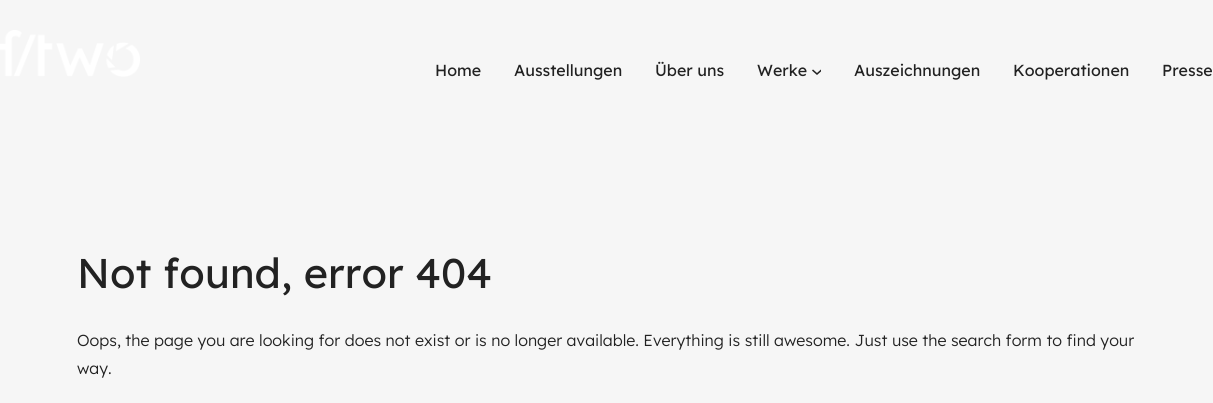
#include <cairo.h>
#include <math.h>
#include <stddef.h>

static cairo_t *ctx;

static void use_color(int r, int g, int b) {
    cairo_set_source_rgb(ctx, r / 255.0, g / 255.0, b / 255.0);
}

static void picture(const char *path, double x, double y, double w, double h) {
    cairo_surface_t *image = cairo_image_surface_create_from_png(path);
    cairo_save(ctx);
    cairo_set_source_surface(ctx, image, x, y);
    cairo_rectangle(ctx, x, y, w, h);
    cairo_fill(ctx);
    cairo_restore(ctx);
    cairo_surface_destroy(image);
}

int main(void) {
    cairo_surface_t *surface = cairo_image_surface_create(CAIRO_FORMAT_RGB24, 1213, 403);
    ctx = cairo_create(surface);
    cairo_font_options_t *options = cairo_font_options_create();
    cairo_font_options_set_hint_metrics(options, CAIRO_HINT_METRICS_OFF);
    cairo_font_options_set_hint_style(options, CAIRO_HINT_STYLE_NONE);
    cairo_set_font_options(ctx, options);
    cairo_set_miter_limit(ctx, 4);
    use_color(246, 246, 246);
    cairo_paint(ctx);
    picture("img1.png", 0, 30, 140, 47);
    cairo_select_font_face(ctx, "Lexend", CAIRO_FONT_SLANT_NORMAL, CAIRO_FONT_WEIGHT_NORMAL);
    cairo_set_font_size(ctx, 16);
    use_color(34, 34, 34);
    cairo_move_to(ctx, 435, 76);
    cairo_show_text(ctx, "Home");
    cairo_move_to(ctx, 514, 76);
    cairo_show_text(ctx, "Ausstellungen");
    cairo_move_to(ctx, 655, 76);
    cairo_show_text(ctx, "Über uns");
    cairo_move_to(ctx, 757, 76);
    cairo_show_text(ctx, "Werke");
    cairo_save(ctx);
    cairo_rectangle(ctx, 811, 66, 10, 10);
    cairo_clip(ctx);
    cairo_new_path(ctx);
    cairo_move_to(ctx, 812.5, 70);
    cairo_line_to(ctx, 817, 74);
    cairo_line_to(ctx, 821.5, 70);
    cairo_set_line_width(ctx, 1.5);
    cairo_stroke(ctx);
    cairo_restore(ctx);
    cairo_move_to(ctx, 854, 76);
    cairo_show_text(ctx, "Auszeichnungen");
    cairo_move_to(ctx, 1013, 76);
    cairo_show_text(ctx, "Kooperationen");
    cairo_move_to(ctx, 1162, 76);
    cairo_show_text(ctx, "Presse");
    cairo_set_font_size(ctx, 41.5);
    cairo_move_to(ctx, 77, 288);
    cairo_show_text(ctx, "Not found, error 404");
    cairo_select_font_face(ctx, "Lexend Light", CAIRO_FONT_SLANT_NORMAL, CAIRO_FONT_WEIGHT_NORMAL);
    cairo_set_font_size(ctx, 16);
    cairo_move_to(ctx, 77, 346);
    cairo_show_text(ctx, "Oops, the page you are looking for does not exist or is no longer available. Everything is still awesome. Just use the search form to find your");
    cairo_move_to(ctx, 77, 374);
    cairo_show_text(ctx, "way.");
    cairo_surface_write_to_png(surface, "result.png");
    cairo_font_options_destroy(options);
    cairo_destroy(ctx);
    cairo_surface_destroy(surface);
    return 0;
}
